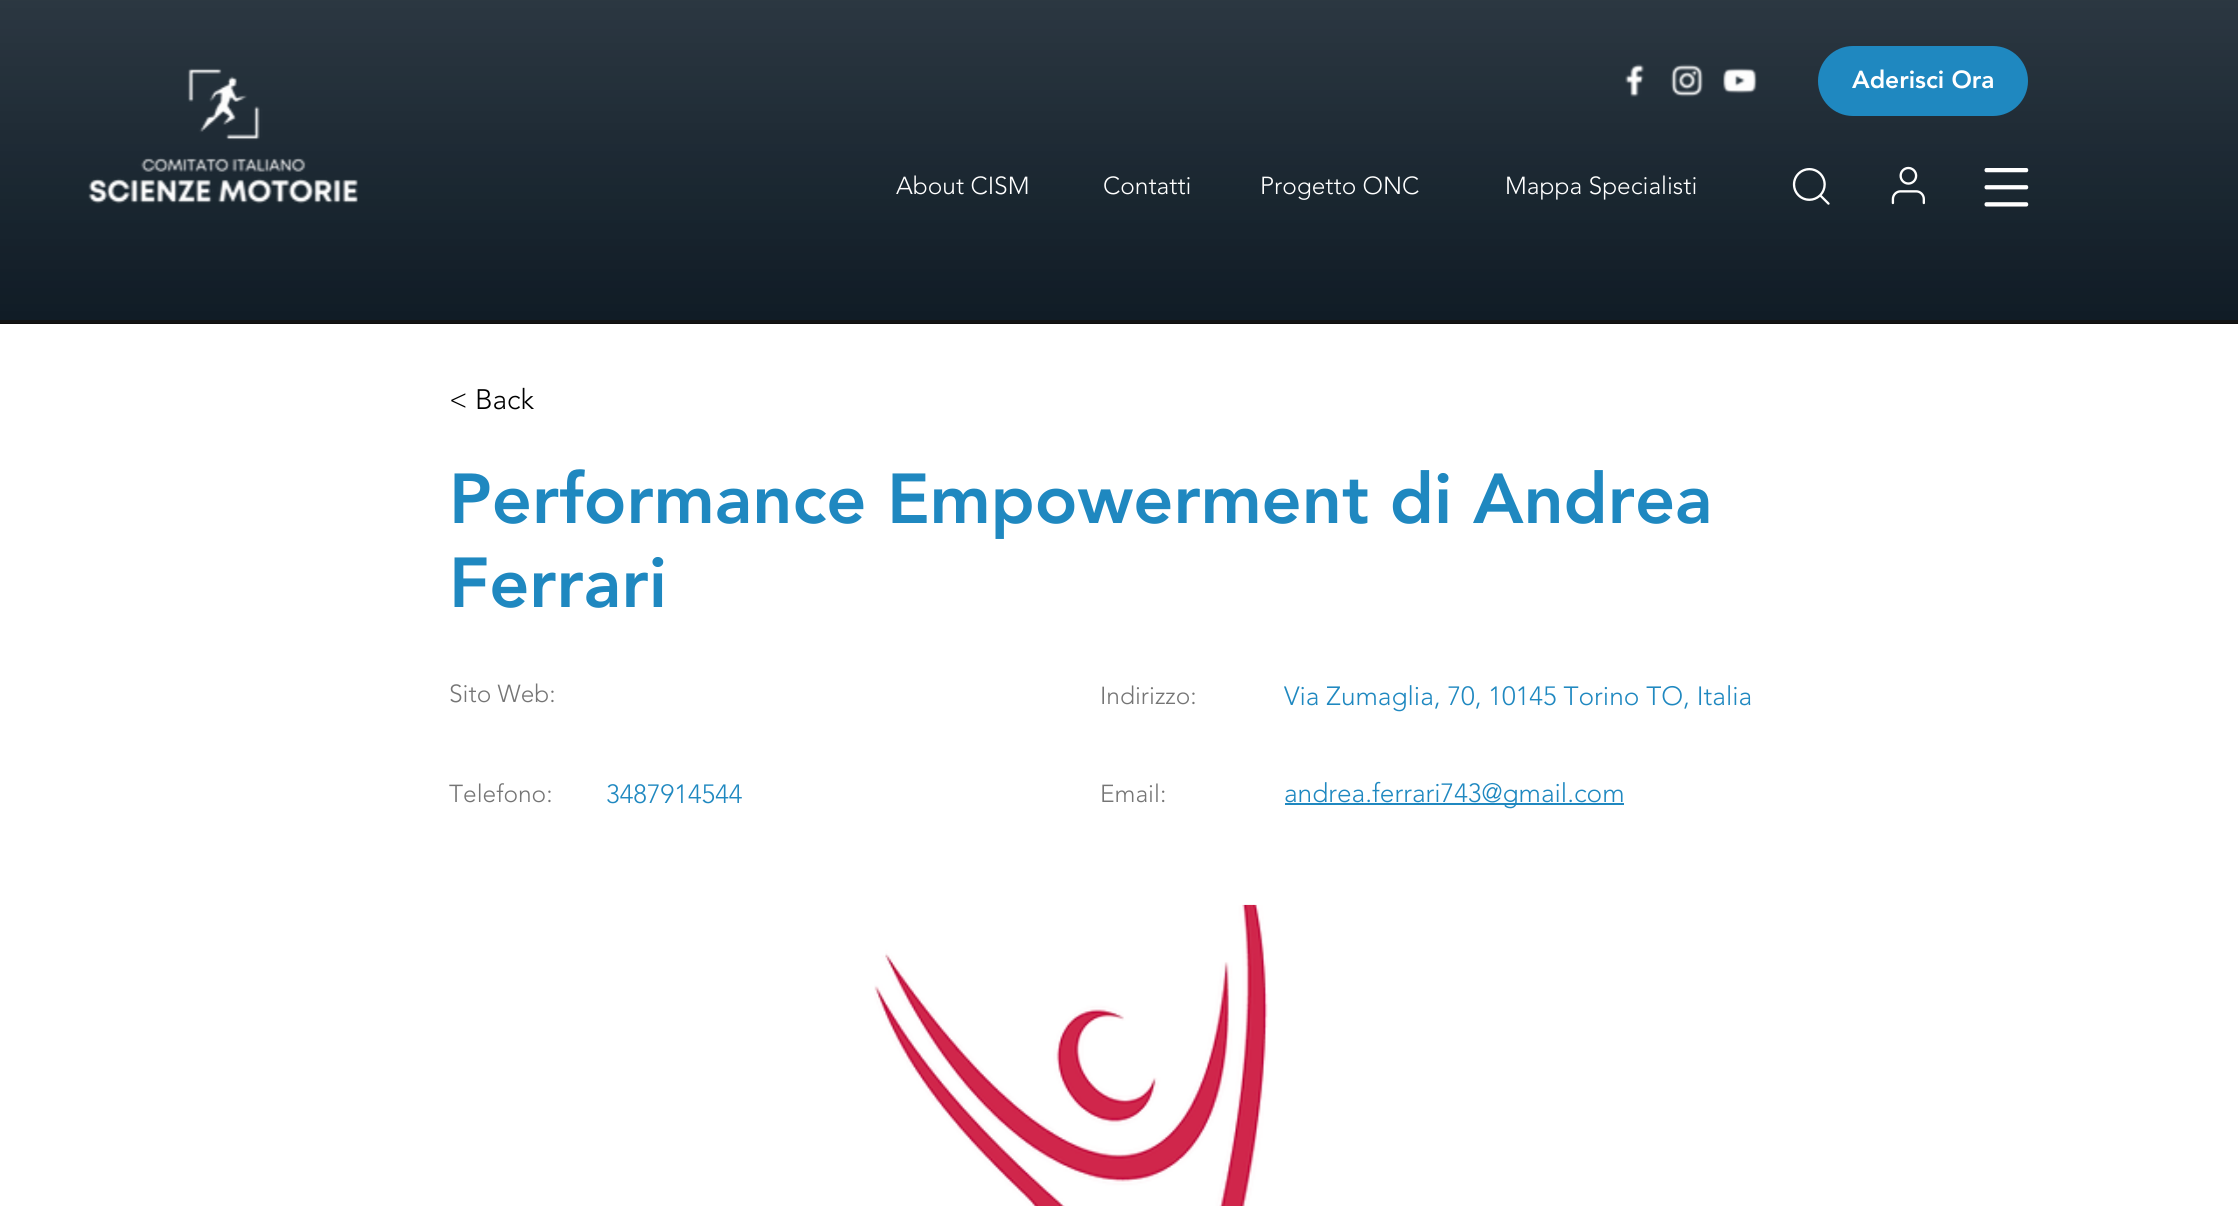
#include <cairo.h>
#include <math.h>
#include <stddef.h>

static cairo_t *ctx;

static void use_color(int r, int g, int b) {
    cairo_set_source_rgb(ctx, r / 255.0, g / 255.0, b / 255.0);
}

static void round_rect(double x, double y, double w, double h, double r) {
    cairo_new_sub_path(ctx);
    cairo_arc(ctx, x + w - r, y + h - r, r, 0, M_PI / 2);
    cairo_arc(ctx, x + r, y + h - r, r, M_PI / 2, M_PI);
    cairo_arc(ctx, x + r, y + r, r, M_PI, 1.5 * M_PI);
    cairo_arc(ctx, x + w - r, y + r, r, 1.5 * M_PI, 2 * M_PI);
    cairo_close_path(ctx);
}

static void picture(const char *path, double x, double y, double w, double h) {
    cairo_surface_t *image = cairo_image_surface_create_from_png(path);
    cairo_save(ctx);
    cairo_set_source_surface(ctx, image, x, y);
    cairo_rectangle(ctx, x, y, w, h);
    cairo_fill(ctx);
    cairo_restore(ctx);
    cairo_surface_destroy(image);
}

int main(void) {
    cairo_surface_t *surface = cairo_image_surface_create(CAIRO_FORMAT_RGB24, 2238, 1206);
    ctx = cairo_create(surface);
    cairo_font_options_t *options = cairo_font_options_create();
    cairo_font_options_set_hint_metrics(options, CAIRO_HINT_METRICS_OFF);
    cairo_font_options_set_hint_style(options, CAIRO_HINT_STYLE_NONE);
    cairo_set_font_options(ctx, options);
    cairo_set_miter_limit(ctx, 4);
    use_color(255, 255, 255);
    cairo_paint(ctx);
    use_color(0, 0, 0);
    cairo_rectangle(ctx, 0, 320, 2238, 4);
    cairo_fill(ctx);
    use_color(4, 16, 26);
    cairo_rectangle(ctx, 0, 0, 2238, 320);
    cairo_fill(ctx);
    picture("img1.png", 0, 0, 2238, 324);
    picture("img2.png", 88, 68, 270, 136);
    picture("img3.png", 1625, 64, 20, 33);
    picture("img4.png", 1670, 64, 33, 33);
    picture("img5.png", 1723, 68, 34, 26);
    use_color(31, 136, 192);
    round_rect(1820, 48, 206, 66, 33);
    cairo_fill_preserve(ctx);
    cairo_set_line_width(ctx, 4);
    cairo_stroke(ctx);
    cairo_select_font_face(ctx, "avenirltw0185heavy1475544 Black", CAIRO_FONT_SLANT_NORMAL, CAIRO_FONT_WEIGHT_NORMAL);
    cairo_set_font_size(ctx, 24.5);
    use_color(255, 255, 255);
    cairo_move_to(ctx, 1852, 88);
    cairo_show_text(ctx, "Aderisci Ora");
    cairo_select_font_face(ctx, "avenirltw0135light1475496 Light", CAIRO_FONT_SLANT_NORMAL, CAIRO_FONT_WEIGHT_NORMAL);
    cairo_move_to(ctx, 896, 194);
    cairo_show_text(ctx, "About CISM");
    cairo_move_to(ctx, 1103, 194);
    cairo_show_text(ctx, "Contatti");
    cairo_move_to(ctx, 1260, 194);
    cairo_show_text(ctx, "Progetto ONC");
    cairo_move_to(ctx, 1505, 194);
    cairo_show_text(ctx, "Mappa Specialisti");
    picture("img6.png", 1792, 168, 38, 37);
    picture("img7.png", 1891, 166, 34, 39);
    picture("img8.png", 1984, 168, 45, 39);
    cairo_set_font_size(ctx, 28);
    use_color(0, 0, 0);
    cairo_move_to(ctx, 449, 409);
    cairo_show_text(ctx, "< Back");
    cairo_select_font_face(ctx, "avenirltw0185heavy1475544 Black", CAIRO_FONT_SLANT_NORMAL, CAIRO_FONT_WEIGHT_NORMAL);
    cairo_set_font_size(ctx, 70);
    use_color(31, 136, 192);
    cairo_move_to(ctx, 449, 523);
    cairo_show_text(ctx, "Performance Empowerment di Andrea");
    cairo_move_to(ctx, 449, 607);
    cairo_show_text(ctx, "Ferrari");
    cairo_select_font_face(ctx, "avenirltw0135light1475496 Light", CAIRO_FONT_SLANT_NORMAL, CAIRO_FONT_WEIGHT_NORMAL);
    cairo_set_font_size(ctx, 24.5);
    use_color(117, 117, 117);
    cairo_move_to(ctx, 449, 702);
    cairo_show_text(ctx, "Sito Web:");
    cairo_move_to(ctx, 1100, 704);
    cairo_show_text(ctx, "Indirizzo:");
    cairo_set_font_size(ctx, 26.25);
    use_color(31, 136, 192);
    cairo_move_to(ctx, 1284, 705);
    cairo_show_text(ctx, "Via Zumaglia, 70, 10145 Torino TO, Italia");
    cairo_set_font_size(ctx, 24.5);
    use_color(117, 117, 117);
    cairo_move_to(ctx, 449, 802);
    cairo_show_text(ctx, "Telefono:");
    cairo_set_font_size(ctx, 26.25);
    use_color(31, 136, 192);
    cairo_move_to(ctx, 606, 803);
    cairo_show_text(ctx, "3487914544");
    cairo_set_font_size(ctx, 24.5);
    use_color(117, 117, 117);
    cairo_move_to(ctx, 1100, 802);
    cairo_show_text(ctx, "Email:");
    use_color(31, 136, 192);
    cairo_rectangle(ctx, 1285, 803, 339, 2);
    cairo_fill(ctx);
    cairo_set_font_size(ctx, 26.25);
    cairo_move_to(ctx, 1284, 802);
    cairo_show_text(ctx, "andrea.ferrari743@gmail.com");
    picture("img9.png", 874, 904, 394, 302);
    cairo_surface_write_to_png(surface, "result.png");
    cairo_font_options_destroy(options);
    cairo_destroy(ctx);
    cairo_surface_destroy(surface);
    return 0;
}
